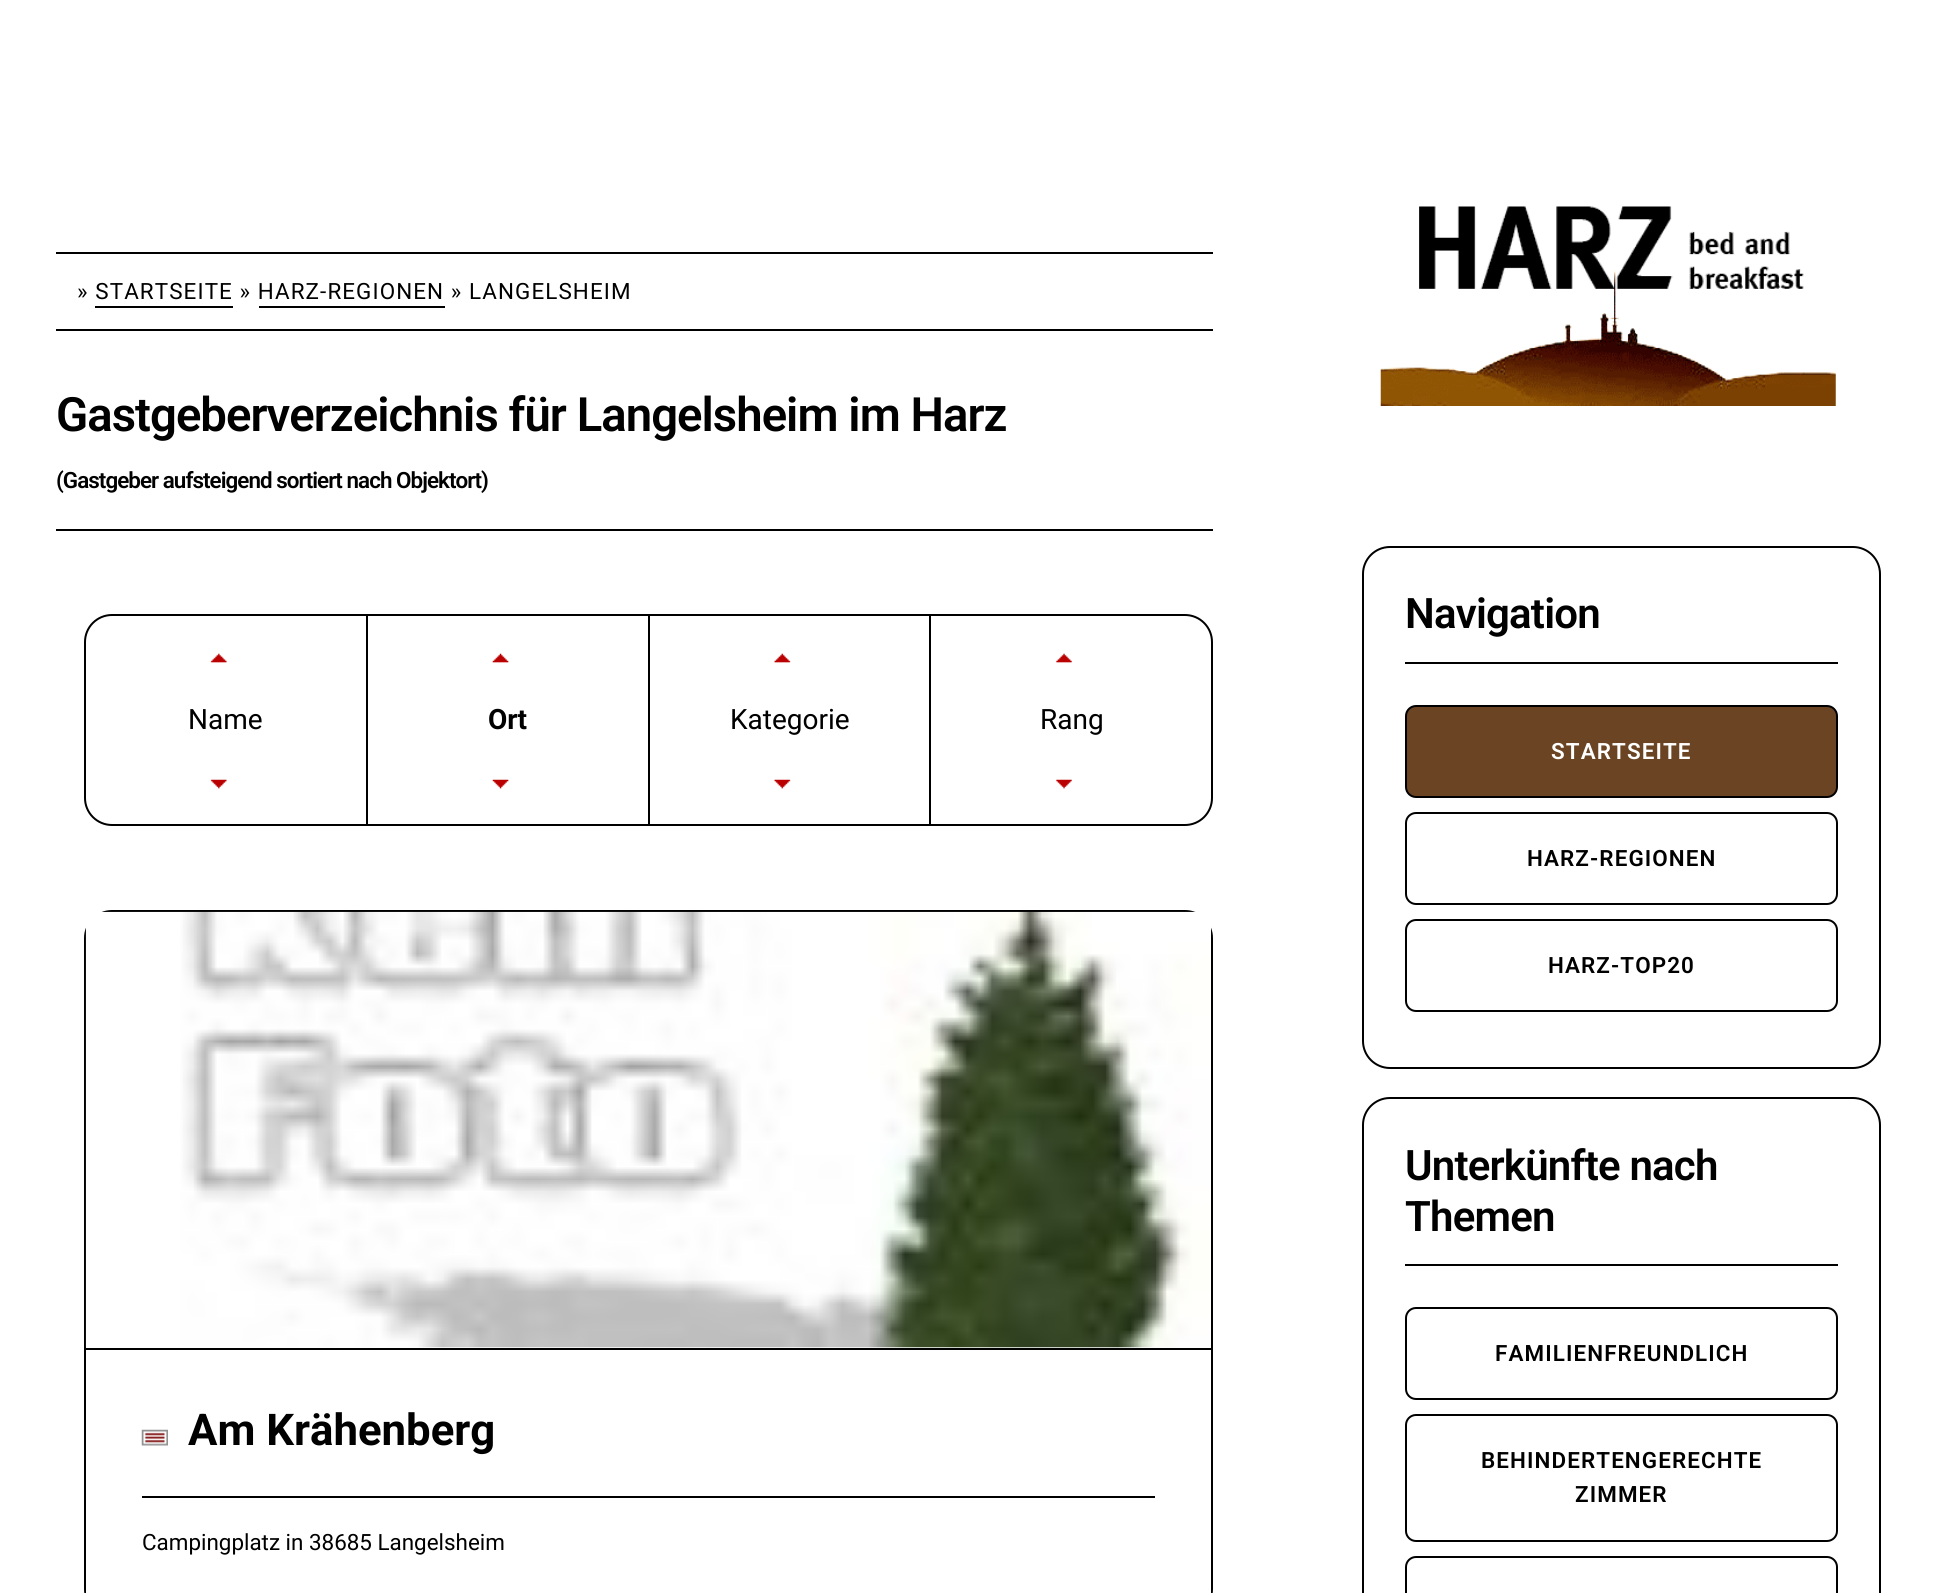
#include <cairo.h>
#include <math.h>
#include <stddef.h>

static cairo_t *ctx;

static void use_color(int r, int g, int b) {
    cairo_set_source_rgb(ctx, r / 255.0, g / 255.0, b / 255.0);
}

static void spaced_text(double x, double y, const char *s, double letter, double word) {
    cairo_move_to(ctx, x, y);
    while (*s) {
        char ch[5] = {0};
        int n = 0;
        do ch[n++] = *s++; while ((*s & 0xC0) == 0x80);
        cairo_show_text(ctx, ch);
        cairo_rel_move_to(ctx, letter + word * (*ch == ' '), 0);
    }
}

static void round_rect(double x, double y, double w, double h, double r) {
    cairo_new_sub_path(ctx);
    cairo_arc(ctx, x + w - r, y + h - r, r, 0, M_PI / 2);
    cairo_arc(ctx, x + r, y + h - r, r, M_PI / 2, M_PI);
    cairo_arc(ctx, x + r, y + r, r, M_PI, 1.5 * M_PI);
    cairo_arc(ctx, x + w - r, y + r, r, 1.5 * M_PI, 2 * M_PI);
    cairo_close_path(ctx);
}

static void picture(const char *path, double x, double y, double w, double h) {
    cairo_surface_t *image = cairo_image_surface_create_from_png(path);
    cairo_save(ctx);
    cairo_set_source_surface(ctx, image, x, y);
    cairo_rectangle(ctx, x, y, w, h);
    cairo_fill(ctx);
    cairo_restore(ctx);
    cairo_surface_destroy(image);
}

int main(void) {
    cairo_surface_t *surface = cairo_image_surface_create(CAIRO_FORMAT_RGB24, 1936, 1593);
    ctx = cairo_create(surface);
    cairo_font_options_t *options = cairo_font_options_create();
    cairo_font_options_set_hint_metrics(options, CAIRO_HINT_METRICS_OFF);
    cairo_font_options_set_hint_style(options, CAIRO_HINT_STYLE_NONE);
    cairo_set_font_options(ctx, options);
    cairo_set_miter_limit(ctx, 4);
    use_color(255, 255, 255);
    cairo_paint(ctx);
    use_color(0, 0, 0);
    cairo_rectangle(ctx, 56, 252, 1157, 2);
    cairo_fill(ctx);
    cairo_rectangle(ctx, 56, 329, 1157, 2);
    cairo_fill(ctx);
    cairo_select_font_face(ctx, "Roboto", CAIRO_FONT_SLANT_NORMAL, CAIRO_FONT_WEIGHT_NORMAL);
    cairo_set_font_size(ctx, 22.4);
    spaced_text(77, 299, "» STARTSEITE » HARZ-REGIONEN » LANGELSHEIM", 1.1, 0);
    cairo_rectangle(ctx, 95, 306, 138, 2);
    cairo_fill(ctx);
    cairo_rectangle(ctx, 259, 306, 186, 2);
    cairo_fill(ctx);
    cairo_rectangle(ctx, 56, 529, 1157, 2);
    cairo_fill(ctx);
    cairo_select_font_face(ctx, "Roboto SemiBold", CAIRO_FONT_SLANT_NORMAL, CAIRO_FONT_WEIGHT_NORMAL);
    cairo_set_font_size(ctx, 47.25);
    spaced_text(56, 431, "Gastgeberverzeichnis für Langelsheim im Harz", -0.95, 0);
    cairo_set_font_size(ctx, 22.4);
    spaced_text(56, 488, "(Gastgeber aufsteigend sortiert nach Objektort)", -0.95, 0);
    round_rect(85, 615, 1127, 210, 27);
    cairo_stroke(ctx);
    cairo_rectangle(ctx, 366, 616, 2, 208);
    cairo_fill(ctx);
    picture("img1.png", 210, 653, 17, 10);
    cairo_select_font_face(ctx, "Roboto", CAIRO_FONT_SLANT_NORMAL, CAIRO_FONT_WEIGHT_NORMAL);
    cairo_set_font_size(ctx, 28);
    cairo_move_to(ctx, 188, 729);
    cairo_show_text(ctx, "Name");
    picture("img2.png", 210, 779, 17, 10);
    cairo_rectangle(ctx, 648, 616, 2, 208);
    cairo_fill(ctx);
    picture("img3.png", 492, 653, 17, 10);
    cairo_select_font_face(ctx, "Roboto", CAIRO_FONT_SLANT_NORMAL, CAIRO_FONT_WEIGHT_BOLD);
    cairo_move_to(ctx, 488, 729);
    cairo_show_text(ctx, "Ort");
    picture("img4.png", 492, 779, 17, 10);
    cairo_rectangle(ctx, 929, 616, 2, 208);
    cairo_fill(ctx);
    picture("img5.png", 774, 653, 17, 10);
    cairo_select_font_face(ctx, "Roboto", CAIRO_FONT_SLANT_NORMAL, CAIRO_FONT_WEIGHT_NORMAL);
    cairo_move_to(ctx, 730, 729);
    cairo_show_text(ctx, "Kategorie");
    picture("img6.png", 774, 779, 17, 10);
    picture("img7.png", 1056, 653, 16, 10);
    cairo_move_to(ctx, 1040, 729);
    cairo_show_text(ctx, "Rang");
    picture("img8.png", 1056, 779, 16, 10);
    round_rect(85, 911, 1127, 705, 27);
    cairo_stroke(ctx);
    cairo_rectangle(ctx, 86, 1348, 1125, 2);
    cairo_fill(ctx);
    picture("img9.png", 85, 911, 1126, 437);
    use_color(255, 255, 255);
    cairo_rectangle(ctx, 86, 1589, 1125, 4);
    cairo_fill(ctx);
    picture("img10.png", 141, 1429, 27, 17);
    cairo_select_font_face(ctx, "Roboto", CAIRO_FONT_SLANT_NORMAL, CAIRO_FONT_WEIGHT_BOLD);
    cairo_set_font_size(ctx, 43.75);
    use_color(0, 0, 0);
    cairo_move_to(ctx, 188, 1445);
    cairo_show_text(ctx, "Am Krähenberg");
    cairo_rectangle(ctx, 142, 1496, 1013, 2);
    cairo_fill(ctx);
    cairo_select_font_face(ctx, "Roboto", CAIRO_FONT_SLANT_NORMAL, CAIRO_FONT_WEIGHT_NORMAL);
    cairo_set_font_size(ctx, 22.4);
    cairo_move_to(ctx, 142, 1550);
    cairo_show_text(ctx, "Campingplatz in 38685 Langelsheim");
    picture("img11.png", 1380, 206, 456, 200);
    round_rect(1363, 547, 517, 521, 27);
    cairo_stroke(ctx);
    cairo_rectangle(ctx, 1405, 662, 433, 2);
    cairo_fill(ctx);
    cairo_select_font_face(ctx, "Roboto SemiBold", CAIRO_FONT_SLANT_NORMAL, CAIRO_FONT_WEIGHT_NORMAL);
    cairo_set_font_size(ctx, 42);
    spaced_text(1405, 628, "Navigation", -0.8, 0);
    use_color(107, 68, 35);
    round_rect(1406, 706, 431, 91, 10);
    cairo_fill_preserve(ctx);
    use_color(0, 0, 0);
    cairo_stroke(ctx);
    cairo_set_font_size(ctx, 22.4);
    use_color(255, 255, 255);
    spaced_text(1551, 759, "STARTSEITE", 1.1, 0);
    round_rect(1406, 813, 431, 91, 10);
    use_color(0, 0, 0);
    cairo_stroke(ctx);
    spaced_text(1527, 866, "HARZ-REGIONEN", 1.1, 0);
    round_rect(1406, 920, 431, 91, 10);
    cairo_stroke(ctx);
    spaced_text(1548, 973, "HARZ-TOP20", 1.1, 0);
    round_rect(1363, 1098, 517, 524, 27);
    cairo_stroke(ctx);
    cairo_rectangle(ctx, 1405, 1264, 433, 2);
    cairo_fill(ctx);
    cairo_set_font_size(ctx, 42);
    spaced_text(1405, 1180, "Unterkünfte nach", -0.8, 0);
    spaced_text(1405, 1231, "Themen", -0.8, 0);
    round_rect(1406, 1308, 431, 91, 10);
    cairo_stroke(ctx);
    cairo_set_font_size(ctx, 22.4);
    spaced_text(1495, 1361, "FAMILIENFREUNDLICH", 1.1, 0);
    round_rect(1406, 1415, 431, 126, 10);
    cairo_stroke(ctx);
    spaced_text(1481, 1468, "BEHINDERTENGERECHTE", 1.1, 0);
    spaced_text(1575, 1502, "ZIMMER", 1.1, 0);
    round_rect(1406, 1557, 431, 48, 10);
    cairo_stroke(ctx);
    cairo_surface_write_to_png(surface, "result.png");
    cairo_font_options_destroy(options);
    cairo_destroy(ctx);
    cairo_surface_destroy(surface);
    return 0;
}
